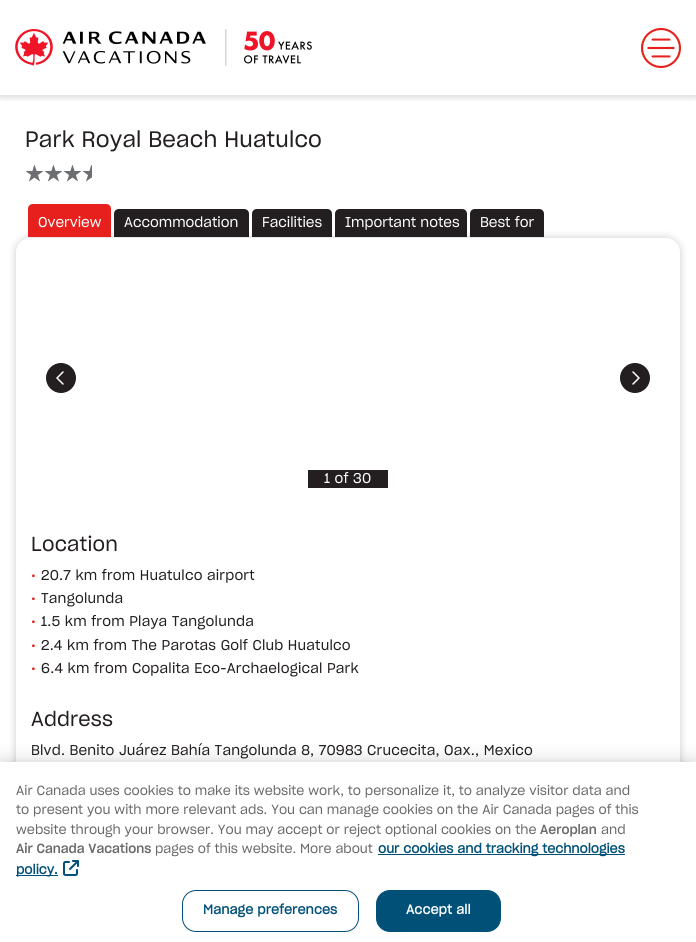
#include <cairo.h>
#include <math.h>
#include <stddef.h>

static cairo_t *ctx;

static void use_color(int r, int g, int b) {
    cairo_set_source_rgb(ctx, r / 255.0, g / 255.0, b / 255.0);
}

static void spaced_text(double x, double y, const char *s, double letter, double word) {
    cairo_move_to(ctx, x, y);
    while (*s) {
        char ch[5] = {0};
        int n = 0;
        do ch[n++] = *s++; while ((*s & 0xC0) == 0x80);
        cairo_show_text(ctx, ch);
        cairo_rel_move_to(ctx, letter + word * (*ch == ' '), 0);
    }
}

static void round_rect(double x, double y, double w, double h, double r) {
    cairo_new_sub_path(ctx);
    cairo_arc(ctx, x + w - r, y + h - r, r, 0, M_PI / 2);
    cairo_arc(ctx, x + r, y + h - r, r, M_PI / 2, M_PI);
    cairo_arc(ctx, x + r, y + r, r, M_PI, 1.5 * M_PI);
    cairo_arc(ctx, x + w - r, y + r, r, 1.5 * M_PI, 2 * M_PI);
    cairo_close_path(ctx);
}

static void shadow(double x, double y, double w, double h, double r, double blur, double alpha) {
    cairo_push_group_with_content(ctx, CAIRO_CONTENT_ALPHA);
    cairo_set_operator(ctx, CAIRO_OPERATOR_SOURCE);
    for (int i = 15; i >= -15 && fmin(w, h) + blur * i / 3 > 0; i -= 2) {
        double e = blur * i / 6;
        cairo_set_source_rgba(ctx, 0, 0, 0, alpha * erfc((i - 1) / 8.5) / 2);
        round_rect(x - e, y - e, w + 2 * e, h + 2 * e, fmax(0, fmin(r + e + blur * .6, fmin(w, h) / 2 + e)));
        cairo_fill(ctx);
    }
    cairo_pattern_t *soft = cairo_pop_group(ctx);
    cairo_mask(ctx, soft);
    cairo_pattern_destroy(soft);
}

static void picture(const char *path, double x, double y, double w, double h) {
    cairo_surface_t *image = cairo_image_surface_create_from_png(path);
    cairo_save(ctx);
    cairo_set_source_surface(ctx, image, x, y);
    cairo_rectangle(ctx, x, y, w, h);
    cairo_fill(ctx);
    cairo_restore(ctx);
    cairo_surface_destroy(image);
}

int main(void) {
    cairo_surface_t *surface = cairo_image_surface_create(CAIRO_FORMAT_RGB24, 696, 942);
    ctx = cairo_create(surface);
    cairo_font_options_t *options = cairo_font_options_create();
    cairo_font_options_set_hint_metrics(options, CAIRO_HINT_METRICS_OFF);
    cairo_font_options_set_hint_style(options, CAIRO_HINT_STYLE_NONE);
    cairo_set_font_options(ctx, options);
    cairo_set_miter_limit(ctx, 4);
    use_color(255, 255, 255);
    cairo_paint(ctx);
    cairo_save(ctx);
    cairo_rectangle(ctx, 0, 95, 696, 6);
    cairo_clip(ctx);
    use_color(35, 31, 32);
    shadow(0, 3, 696, 95, 0, 3, 0.15);
    cairo_restore(ctx);
    picture("img1.png", 15, 29, 297, 37);
    picture("img2.png", 641, 28, 40, 40);
    cairo_select_font_face(ctx, "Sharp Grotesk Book", CAIRO_FONT_SLANT_NORMAL, CAIRO_FONT_WEIGHT_NORMAL);
    cairo_set_font_size(ctx, 22);
    use_color(35, 31, 32);
    spaced_text(25, 147, "Park Royal Beach Huatulco", 0.2, 0);
    picture("img3.png", 25, 165, 67, 17);
    cairo_save(ctx);
    cairo_set_fill_rule(ctx, CAIRO_FILL_RULE_EVEN_ODD);
    cairo_new_path(ctx);
    cairo_move_to(ctx, 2, 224);
    cairo_line_to(ctx, 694, 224);
    cairo_line_to(ctx, 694, 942);
    cairo_line_to(ctx, 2, 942);
    cairo_close_path(ctx);
    cairo_move_to(ctx, 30, 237);
    cairo_line_to(ctx, 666, 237);
    cairo_curve_to(ctx, 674.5, 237, 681, 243.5, 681, 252);
    cairo_line_to(ctx, 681, 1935);
    cairo_curve_to(ctx, 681, 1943.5, 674.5, 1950, 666, 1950);
    cairo_line_to(ctx, 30, 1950);
    cairo_curve_to(ctx, 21.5, 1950, 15, 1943.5, 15, 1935);
    cairo_line_to(ctx, 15, 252);
    cairo_curve_to(ctx, 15, 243.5, 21.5, 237, 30, 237);
    cairo_close_path(ctx);
    cairo_clip(ctx);
    use_color(0, 0, 0);
    shadow(15, 237, 666, 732, 15, 4, 0.16);
    cairo_restore(ctx);
    use_color(231, 32, 29);
    cairo_new_path(ctx);
    cairo_move_to(ctx, 33, 204);
    cairo_line_to(ctx, 106, 204);
    cairo_curve_to(ctx, 109, 204, 111, 206, 111, 209);
    cairo_line_to(ctx, 111, 237);
    cairo_line_to(ctx, 28, 237);
    cairo_line_to(ctx, 28, 209);
    cairo_curve_to(ctx, 28, 206, 30, 204, 33, 204);
    cairo_close_path(ctx);
    cairo_fill(ctx);
    cairo_set_font_size(ctx, 14);
    use_color(255, 255, 255);
    cairo_move_to(ctx, 38, 227);
    cairo_show_text(ctx, "Overview");
    use_color(35, 31, 32);
    cairo_new_path(ctx);
    cairo_move_to(ctx, 119, 209);
    cairo_line_to(ctx, 244, 209);
    cairo_curve_to(ctx, 247, 209, 249, 211, 249, 214);
    cairo_line_to(ctx, 249, 237);
    cairo_line_to(ctx, 114, 237);
    cairo_line_to(ctx, 114, 214);
    cairo_curve_to(ctx, 114, 211, 116, 209, 119, 209);
    cairo_close_path(ctx);
    cairo_fill(ctx);
    use_color(255, 255, 255);
    cairo_move_to(ctx, 124, 227);
    cairo_show_text(ctx, "Accommodation");
    use_color(35, 31, 32);
    cairo_new_path(ctx);
    cairo_move_to(ctx, 257, 209);
    cairo_line_to(ctx, 327, 209);
    cairo_curve_to(ctx, 330, 209, 332, 211, 332, 214);
    cairo_line_to(ctx, 332, 237);
    cairo_line_to(ctx, 252, 237);
    cairo_line_to(ctx, 252, 214);
    cairo_curve_to(ctx, 252, 211, 254, 209, 257, 209);
    cairo_close_path(ctx);
    cairo_fill(ctx);
    use_color(255, 255, 255);
    cairo_move_to(ctx, 262, 227);
    cairo_show_text(ctx, "Facilities");
    use_color(35, 31, 32);
    cairo_new_path(ctx);
    cairo_move_to(ctx, 340, 209);
    cairo_line_to(ctx, 462, 209);
    cairo_curve_to(ctx, 465, 209, 467, 211, 467, 214);
    cairo_line_to(ctx, 467, 237);
    cairo_line_to(ctx, 335, 237);
    cairo_line_to(ctx, 335, 214);
    cairo_curve_to(ctx, 335, 211, 337, 209, 340, 209);
    cairo_close_path(ctx);
    cairo_fill(ctx);
    use_color(255, 255, 255);
    cairo_move_to(ctx, 345, 227);
    cairo_show_text(ctx, "Important notes");
    use_color(35, 31, 32);
    cairo_new_path(ctx);
    cairo_move_to(ctx, 475, 209);
    cairo_line_to(ctx, 539, 209);
    cairo_curve_to(ctx, 542, 209, 544, 211, 544, 214);
    cairo_line_to(ctx, 544, 237);
    cairo_line_to(ctx, 470, 237);
    cairo_line_to(ctx, 470, 214);
    cairo_curve_to(ctx, 470, 211, 472, 209, 475, 209);
    cairo_close_path(ctx);
    cairo_fill(ctx);
    use_color(255, 255, 255);
    cairo_move_to(ctx, 480, 227);
    cairo_show_text(ctx, "Best for");
    round_rect(15.5, 237.5, 665, 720, 14.5);
    use_color(230, 231, 232);
    cairo_set_line_width(ctx, 1);
    cairo_stroke(ctx);
    use_color(35, 31, 32);
    cairo_arc(ctx, 61, 378, 15, 0, 2 * M_PI);
    cairo_fill(ctx);
    picture("img4.png", 56, 371, 8, 14);
    cairo_arc(ctx, 635, 378, 15, 0, 2 * M_PI);
    cairo_fill(ctx);
    picture("img5.png", 632, 371, 8, 14);
    cairo_rectangle(ctx, 308, 470, 80, 18);
    cairo_fill(ctx);
    use_color(255, 255, 255);
    spaced_text(324, 483, "1 of 30", 0.2, 0);
    cairo_set_font_size(ctx, 20);
    use_color(35, 31, 32);
    spaced_text(31, 551, "Location", 0.2, 0);
    cairo_select_font_face(ctx, "Sharp Grotesk Book", CAIRO_FONT_SLANT_NORMAL, CAIRO_FONT_WEIGHT_BOLD);
    cairo_set_font_size(ctx, 14);
    use_color(231, 32, 29);
    spaced_text(31, 580, "•", 0.2, 0);
    cairo_select_font_face(ctx, "Sharp Grotesk Book", CAIRO_FONT_SLANT_NORMAL, CAIRO_FONT_WEIGHT_NORMAL);
    use_color(35, 31, 32);
    spaced_text(41, 580, "20.7 km from Huatulco airport", 0.2, 0);
    cairo_select_font_face(ctx, "Sharp Grotesk Book", CAIRO_FONT_SLANT_NORMAL, CAIRO_FONT_WEIGHT_BOLD);
    use_color(231, 32, 29);
    spaced_text(31, 603, "•", 0.2, 0);
    cairo_select_font_face(ctx, "Sharp Grotesk Book", CAIRO_FONT_SLANT_NORMAL, CAIRO_FONT_WEIGHT_NORMAL);
    use_color(35, 31, 32);
    spaced_text(41, 603, "Tangolunda", 0.2, 0);
    cairo_select_font_face(ctx, "Sharp Grotesk Book", CAIRO_FONT_SLANT_NORMAL, CAIRO_FONT_WEIGHT_BOLD);
    use_color(231, 32, 29);
    spaced_text(31, 626, "•", 0.2, 0);
    cairo_select_font_face(ctx, "Sharp Grotesk Book", CAIRO_FONT_SLANT_NORMAL, CAIRO_FONT_WEIGHT_NORMAL);
    use_color(35, 31, 32);
    spaced_text(41, 626, "1.5 km from Playa Tangolunda", 0.2, 0);
    cairo_select_font_face(ctx, "Sharp Grotesk Book", CAIRO_FONT_SLANT_NORMAL, CAIRO_FONT_WEIGHT_BOLD);
    use_color(231, 32, 29);
    spaced_text(31, 650, "•", 0.2, 0);
    cairo_select_font_face(ctx, "Sharp Grotesk Book", CAIRO_FONT_SLANT_NORMAL, CAIRO_FONT_WEIGHT_NORMAL);
    use_color(35, 31, 32);
    spaced_text(41, 650, "2.4 km from The Parotas Golf Club Huatulco", 0.2, 0);
    cairo_select_font_face(ctx, "Sharp Grotesk Book", CAIRO_FONT_SLANT_NORMAL, CAIRO_FONT_WEIGHT_BOLD);
    use_color(231, 32, 29);
    spaced_text(31, 673, "•", 0.2, 0);
    cairo_select_font_face(ctx, "Sharp Grotesk Book", CAIRO_FONT_SLANT_NORMAL, CAIRO_FONT_WEIGHT_NORMAL);
    use_color(35, 31, 32);
    spaced_text(41, 673, "6.4 km from Copalita Eco-Archaelogical Park", 0.2, 0);
    cairo_set_font_size(ctx, 20);
    spaced_text(31, 726, "Address", 0.2, 0);
    cairo_set_font_size(ctx, 14);
    spaced_text(31, 755, "Blvd. Benito Juárez Bahía Tangolunda 8, 70983 Crucecita, Oax., Mexico", 0.2, 0);
    use_color(0, 0, 0);
    shadow(0, 762, 696, 180, 0, 9, 0.2);
    use_color(255, 255, 255);
    cairo_rectangle(ctx, 0, 762, 696, 180);
    cairo_fill(ctx);
    cairo_set_font_size(ctx, 13);
    use_color(105, 105, 105);
    cairo_move_to(ctx, 16, 795);
    cairo_show_text(ctx, "Air Canada uses cookies to make its website work, to personalize it, to analyze visitor data and");
    cairo_move_to(ctx, 16, 814);
    cairo_show_text(ctx, "to present you with more relevant ads. You can manage cookies on the Air Canada pages of this");
    cairo_move_to(ctx, 16, 834);
    cairo_show_text(ctx, "website through your browser. You may accept or reject optional cookies on the");
    cairo_select_font_face(ctx, "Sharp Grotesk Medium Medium", CAIRO_FONT_SLANT_NORMAL, CAIRO_FONT_WEIGHT_NORMAL);
    cairo_move_to(ctx, 540, 834);
    cairo_show_text(ctx, "Aeroplan");
    cairo_select_font_face(ctx, "Sharp Grotesk Book", CAIRO_FONT_SLANT_NORMAL, CAIRO_FONT_WEIGHT_NORMAL);
    cairo_move_to(ctx, 601, 834);
    cairo_show_text(ctx, "and");
    cairo_select_font_face(ctx, "Sharp Grotesk Medium Medium", CAIRO_FONT_SLANT_NORMAL, CAIRO_FONT_WEIGHT_NORMAL);
    cairo_move_to(ctx, 16, 853);
    cairo_show_text(ctx, "Air Canada Vacations");
    use_color(0, 80, 120);
    cairo_rectangle(ctx, 378, 854, 247, 1);
    cairo_fill(ctx);
    cairo_select_font_face(ctx, "Sharp Grotesk Book", CAIRO_FONT_SLANT_NORMAL, CAIRO_FONT_WEIGHT_BOLD);
    cairo_move_to(ctx, 378, 853);
    cairo_show_text(ctx, "our cookies and tracking technologies");
    cairo_rectangle(ctx, 16, 875, 42, 1);
    cairo_fill(ctx);
    cairo_move_to(ctx, 16, 874);
    cairo_show_text(ctx, "policy.");
    picture("img6.png", 63, 860, 16, 16);
    cairo_select_font_face(ctx, "Sharp Grotesk Book", CAIRO_FONT_SLANT_NORMAL, CAIRO_FONT_WEIGHT_NORMAL);
    use_color(105, 105, 105);
    cairo_move_to(ctx, 155, 853);
    cairo_show_text(ctx, "pages of this website. More about");
    round_rect(182.5, 890.5, 176, 41, 13.5);
    use_color(0, 80, 120);
    cairo_stroke(ctx);
    cairo_select_font_face(ctx, "Sharp Grotesk Book", CAIRO_FONT_SLANT_NORMAL, CAIRO_FONT_WEIGHT_BOLD);
    spaced_text(203, 914, "Manage preferences", 0.1, 0);
    round_rect(376.5, 890.5, 124, 41, 13.5);
    cairo_fill_preserve(ctx);
    cairo_stroke(ctx);
    use_color(255, 255, 255);
    spaced_text(406, 914, "Accept all", 0.1, 0);
    cairo_surface_write_to_png(surface, "result.png");
    cairo_font_options_destroy(options);
    cairo_destroy(ctx);
    cairo_surface_destroy(surface);
    return 0;
}
